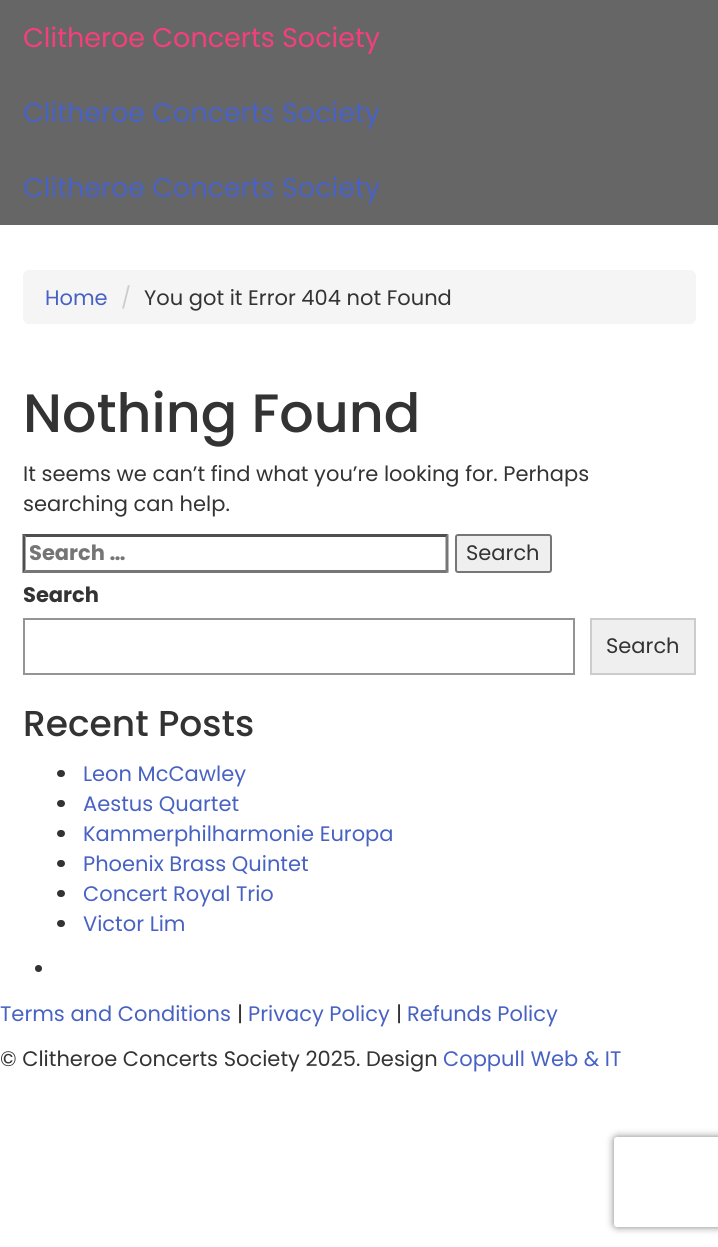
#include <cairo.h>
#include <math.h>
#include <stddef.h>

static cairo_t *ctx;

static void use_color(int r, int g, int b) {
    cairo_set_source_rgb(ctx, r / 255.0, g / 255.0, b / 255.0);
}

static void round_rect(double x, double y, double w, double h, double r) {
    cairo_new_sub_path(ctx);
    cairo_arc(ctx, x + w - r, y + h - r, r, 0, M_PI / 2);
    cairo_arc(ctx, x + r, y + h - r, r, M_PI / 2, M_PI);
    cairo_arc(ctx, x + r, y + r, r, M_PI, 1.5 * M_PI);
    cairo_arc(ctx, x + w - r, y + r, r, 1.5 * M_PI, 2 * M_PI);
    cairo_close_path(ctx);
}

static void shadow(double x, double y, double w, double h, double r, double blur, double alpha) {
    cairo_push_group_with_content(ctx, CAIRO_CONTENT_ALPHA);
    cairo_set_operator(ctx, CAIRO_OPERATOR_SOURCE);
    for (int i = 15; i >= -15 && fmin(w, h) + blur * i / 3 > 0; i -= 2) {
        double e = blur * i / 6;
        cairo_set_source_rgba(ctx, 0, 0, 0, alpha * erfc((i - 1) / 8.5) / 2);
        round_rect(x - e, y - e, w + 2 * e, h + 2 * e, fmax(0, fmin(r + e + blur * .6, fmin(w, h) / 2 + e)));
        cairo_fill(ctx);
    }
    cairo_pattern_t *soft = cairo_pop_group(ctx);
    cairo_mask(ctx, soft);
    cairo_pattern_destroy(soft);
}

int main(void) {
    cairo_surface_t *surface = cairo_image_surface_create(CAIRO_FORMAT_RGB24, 718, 1247);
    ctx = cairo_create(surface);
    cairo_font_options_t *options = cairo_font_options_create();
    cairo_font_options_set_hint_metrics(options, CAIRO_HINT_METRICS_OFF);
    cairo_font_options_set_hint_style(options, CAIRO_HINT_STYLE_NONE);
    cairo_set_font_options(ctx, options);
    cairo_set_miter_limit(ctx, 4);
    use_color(255, 255, 255);
    cairo_paint(ctx);
    use_color(102, 102, 102);
    cairo_rectangle(ctx, 0, 0, 718, 225);
    cairo_fill(ctx);
    cairo_select_font_face(ctx, "Poppins", CAIRO_FONT_SLANT_NORMAL, CAIRO_FONT_WEIGHT_NORMAL);
    cairo_set_font_size(ctx, 27);
    use_color(245, 63, 123);
    cairo_move_to(ctx, 23, 47);
    cairo_show_text(ctx, "Clitheroe Concerts Society");
    use_color(72, 98, 196);
    cairo_move_to(ctx, 23, 122);
    cairo_show_text(ctx, "Clitheroe Concerts Society");
    cairo_move_to(ctx, 23, 197);
    cairo_show_text(ctx, "Clitheroe Concerts Society");
    use_color(245, 245, 245);
    round_rect(23, 270, 673, 54, 6);
    cairo_fill(ctx);
    cairo_set_font_size(ctx, 21);
    use_color(72, 98, 196);
    cairo_move_to(ctx, 45, 305);
    cairo_show_text(ctx, "Home");
    use_color(204, 204, 204);
    cairo_move_to(ctx, 121, 305);
    cairo_show_text(ctx, "/");
    use_color(51, 51, 51);
    cairo_move_to(ctx, 144, 305);
    cairo_show_text(ctx, "You got it Error 404 not Found");
    cairo_select_font_face(ctx, "Poppins Medium", CAIRO_FONT_SLANT_NORMAL, CAIRO_FONT_WEIGHT_NORMAL);
    cairo_set_font_size(ctx, 54);
    cairo_move_to(ctx, 23, 432);
    cairo_show_text(ctx, "Nothing Found");
    cairo_select_font_face(ctx, "Poppins", CAIRO_FONT_SLANT_NORMAL, CAIRO_FONT_WEIGHT_NORMAL);
    cairo_set_font_size(ctx, 21);
    cairo_move_to(ctx, 23, 481);
    cairo_show_text(ctx, "It seems we can’t find what you’re looking for. Perhaps");
    cairo_move_to(ctx, 23, 511);
    cairo_show_text(ctx, "searching can help.");
    use_color(79, 79, 79);
    cairo_new_path(ctx);
    cairo_move_to(ctx, 22, 534);
    cairo_line_to(ctx, 448, 534);
    cairo_line_to(ctx, 446, 537);
    cairo_line_to(ctx, 26, 537);
    cairo_close_path(ctx);
    cairo_fill(ctx);
    use_color(118, 118, 118);
    cairo_new_path(ctx);
    cairo_move_to(ctx, 448.5, 534);
    cairo_line_to(ctx, 448.5, 573);
    cairo_line_to(ctx, 445.5, 570);
    cairo_line_to(ctx, 445.5, 537);
    cairo_close_path(ctx);
    cairo_fill(ctx);
    cairo_new_path(ctx);
    cairo_move_to(ctx, 448, 573);
    cairo_line_to(ctx, 22, 573);
    cairo_line_to(ctx, 26, 570);
    cairo_line_to(ctx, 446, 570);
    cairo_close_path(ctx);
    cairo_fill(ctx);
    use_color(79, 79, 79);
    cairo_new_path(ctx);
    cairo_move_to(ctx, 22.5, 573);
    cairo_line_to(ctx, 22.5, 534);
    cairo_line_to(ctx, 25.5, 537);
    cairo_line_to(ctx, 25.5, 570);
    cairo_close_path(ctx);
    cairo_fill(ctx);
    cairo_select_font_face(ctx, "Poppins", CAIRO_FONT_SLANT_NORMAL, CAIRO_FONT_WEIGHT_BOLD);
    use_color(117, 117, 117);
    cairo_move_to(ctx, 29, 560);
    cairo_show_text(ctx, "Search …");
    use_color(239, 239, 239);
    round_rect(456, 535, 95, 37, 2);
    cairo_fill_preserve(ctx);
    use_color(118, 118, 118);
    cairo_stroke(ctx);
    cairo_select_font_face(ctx, "Poppins", CAIRO_FONT_SLANT_NORMAL, CAIRO_FONT_WEIGHT_NORMAL);
    use_color(51, 51, 51);
    cairo_move_to(ctx, 466, 560);
    cairo_show_text(ctx, "Search");
    cairo_select_font_face(ctx, "Poppins", CAIRO_FONT_SLANT_NORMAL, CAIRO_FONT_WEIGHT_BOLD);
    cairo_move_to(ctx, 23, 602);
    cairo_show_text(ctx, "Search");
    cairo_rectangle(ctx, 24, 619, 550, 55);
    use_color(148, 148, 148);
    cairo_stroke(ctx);
    use_color(239, 239, 239);
    cairo_rectangle(ctx, 591, 619, 104, 55);
    cairo_fill_preserve(ctx);
    use_color(204, 204, 204);
    cairo_stroke(ctx);
    cairo_select_font_face(ctx, "Poppins", CAIRO_FONT_SLANT_NORMAL, CAIRO_FONT_WEIGHT_NORMAL);
    use_color(51, 51, 51);
    cairo_move_to(ctx, 606, 653);
    cairo_show_text(ctx, "Search");
    cairo_select_font_face(ctx, "Poppins Medium", CAIRO_FONT_SLANT_NORMAL, CAIRO_FONT_WEIGHT_NORMAL);
    cairo_set_font_size(ctx, 36);
    cairo_move_to(ctx, 23, 736);
    cairo_show_text(ctx, "Recent Posts");
    round_rect(57, 770, 8, 7, 3.5);
    cairo_fill(ctx);
    cairo_select_font_face(ctx, "Poppins", CAIRO_FONT_SLANT_NORMAL, CAIRO_FONT_WEIGHT_NORMAL);
    cairo_set_font_size(ctx, 21);
    use_color(72, 98, 196);
    cairo_move_to(ctx, 83, 781);
    cairo_show_text(ctx, "Leon McCawley");
    use_color(51, 51, 51);
    round_rect(57, 800, 8, 7, 3.5);
    cairo_fill(ctx);
    use_color(72, 98, 196);
    cairo_move_to(ctx, 83, 811);
    cairo_show_text(ctx, "Aestus Quartet");
    use_color(51, 51, 51);
    round_rect(57, 830, 8, 7, 3.5);
    cairo_fill(ctx);
    use_color(72, 98, 196);
    cairo_move_to(ctx, 83, 841);
    cairo_show_text(ctx, "Kammerphilharmonie Europa");
    use_color(51, 51, 51);
    round_rect(57, 860, 8, 7, 3.5);
    cairo_fill(ctx);
    use_color(72, 98, 196);
    cairo_move_to(ctx, 83, 871);
    cairo_show_text(ctx, "Phoenix Brass Quintet");
    use_color(51, 51, 51);
    round_rect(57, 890, 8, 7, 3.5);
    cairo_fill(ctx);
    use_color(72, 98, 196);
    cairo_move_to(ctx, 83, 901);
    cairo_show_text(ctx, "Concert Royal Trio");
    use_color(51, 51, 51);
    round_rect(57, 920, 8, 7, 3.5);
    cairo_fill(ctx);
    use_color(72, 98, 196);
    cairo_move_to(ctx, 83, 931);
    cairo_show_text(ctx, "Victor Lim");
    use_color(51, 51, 51);
    cairo_new_path(ctx);
    cairo_arc(ctx, 38.5, 968.5, 3.5, 0, 2 * M_PI);
    cairo_fill(ctx);
    use_color(72, 98, 196);
    cairo_move_to(ctx, 0, 1021);
    cairo_show_text(ctx, "Terms and Conditions");
    use_color(51, 51, 51);
    cairo_move_to(ctx, 237, 1021);
    cairo_show_text(ctx, "|");
    use_color(72, 98, 196);
    cairo_move_to(ctx, 248, 1021);
    cairo_show_text(ctx, "Privacy Policy");
    use_color(51, 51, 51);
    cairo_move_to(ctx, 396, 1021);
    cairo_show_text(ctx, "|");
    use_color(72, 98, 196);
    cairo_move_to(ctx, 407, 1021);
    cairo_show_text(ctx, "Refunds Policy");
    use_color(51, 51, 51);
    cairo_move_to(ctx, 0, 1066);
    cairo_show_text(ctx, "© Clitheroe Concerts Society 2025. Design");
    use_color(72, 98, 196);
    cairo_move_to(ctx, 443, 1066);
    cairo_show_text(ctx, "Coppull Web & IT");
    cairo_save(ctx);
    cairo_set_fill_rule(ctx, CAIRO_FILL_RULE_EVEN_ODD);
    cairo_new_path(ctx);
    cairo_move_to(ctx, 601, 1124);
    cairo_line_to(ctx, 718, 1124);
    cairo_line_to(ctx, 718, 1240);
    cairo_line_to(ctx, 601, 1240);
    cairo_close_path(ctx);
    cairo_move_to(ctx, 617, 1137);
    cairo_line_to(ctx, 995, 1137);
    cairo_curve_to(ctx, 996.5, 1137, 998, 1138.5, 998, 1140);
    cairo_line_to(ctx, 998, 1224);
    cairo_curve_to(ctx, 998, 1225.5, 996.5, 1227, 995, 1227);
    cairo_line_to(ctx, 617, 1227);
    cairo_curve_to(ctx, 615.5, 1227, 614, 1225.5, 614, 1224);
    cairo_line_to(ctx, 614, 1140);
    cairo_curve_to(ctx, 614, 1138.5, 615.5, 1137, 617, 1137);
    cairo_close_path(ctx);
    cairo_clip(ctx);
    use_color(128, 128, 128);
    shadow(614, 1137, 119, 90, 3, 4, 1);
    cairo_restore(ctx);
    cairo_surface_write_to_png(surface, "result.png");
    cairo_font_options_destroy(options);
    cairo_destroy(ctx);
    cairo_surface_destroy(surface);
    return 0;
}
